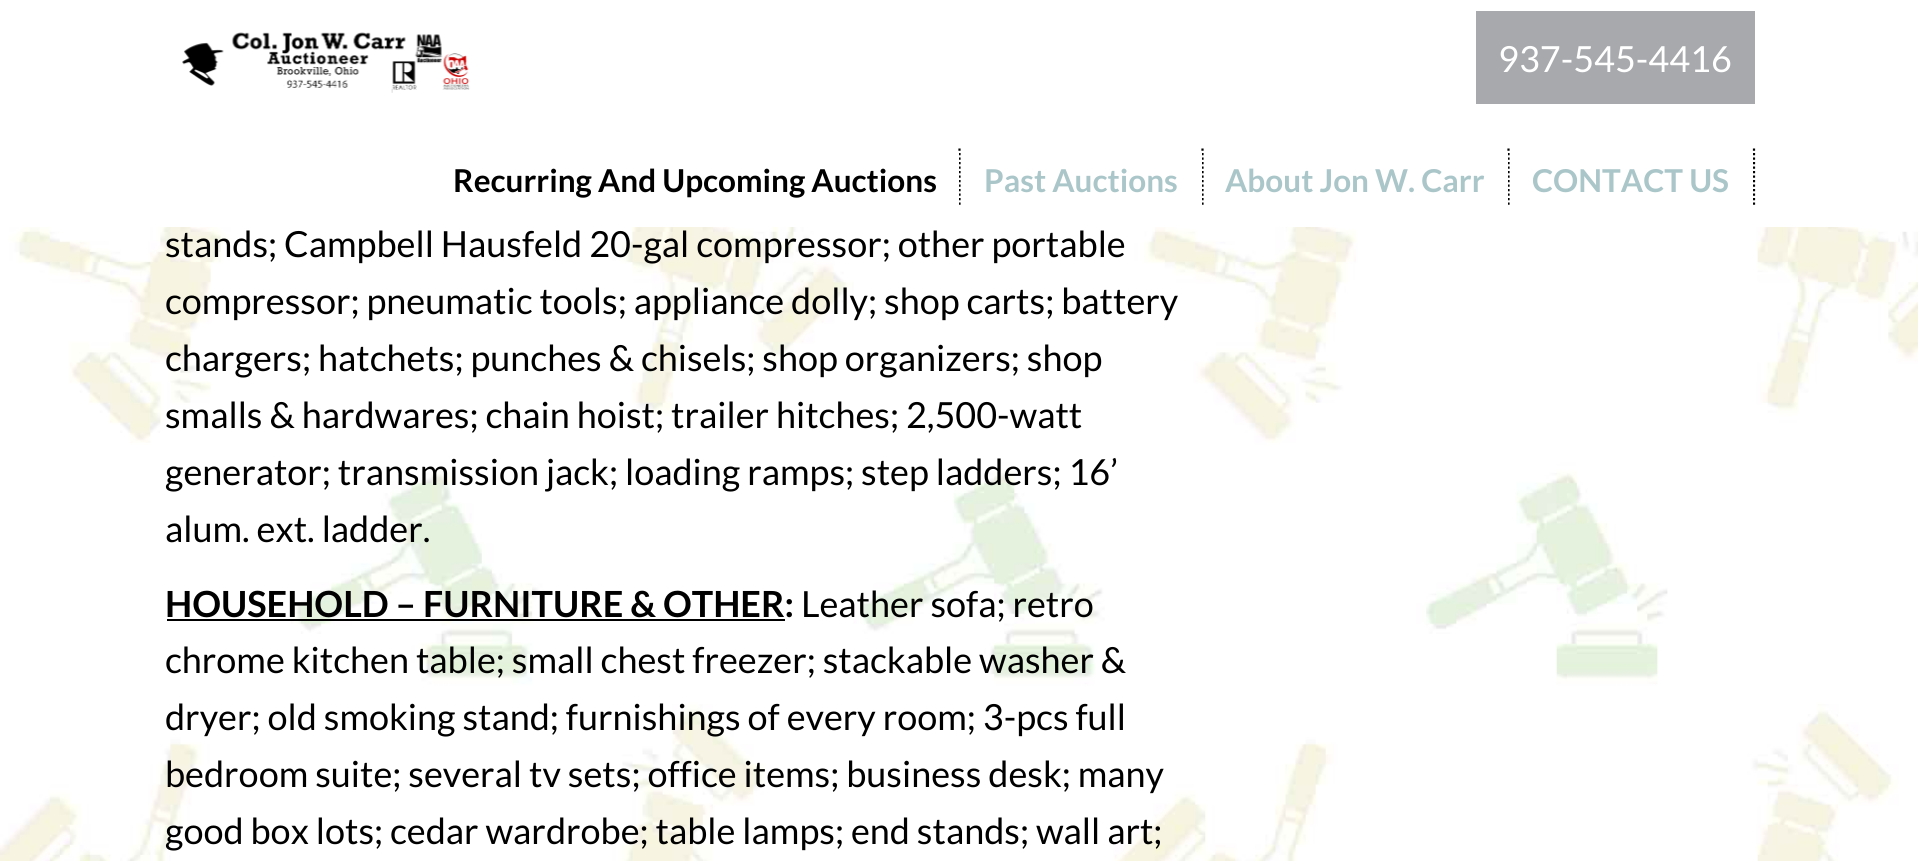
#include <cairo.h>
#include <math.h>
#include <stddef.h>

static cairo_t *ctx;

static void use_color(int r, int g, int b) {
    cairo_set_source_rgb(ctx, r / 255.0, g / 255.0, b / 255.0);
}

static void picture(const char *path, double x, double y, double w, double h) {
    cairo_surface_t *image = cairo_image_surface_create_from_png(path);
    cairo_save(ctx);
    cairo_set_source_surface(ctx, image, x, y);
    cairo_rectangle(ctx, x, y, w, h);
    cairo_fill(ctx);
    cairo_restore(ctx);
    cairo_surface_destroy(image);
}

int main(void) {
    cairo_surface_t *surface = cairo_image_surface_create(CAIRO_FORMAT_RGB24, 1918, 861);
    ctx = cairo_create(surface);
    cairo_font_options_t *options = cairo_font_options_create();
    cairo_font_options_set_hint_metrics(options, CAIRO_HINT_METRICS_OFF);
    cairo_font_options_set_hint_style(options, CAIRO_HINT_STYLE_NONE);
    cairo_set_font_options(ctx, options);
    cairo_set_miter_limit(ctx, 4);
    use_color(255, 255, 255);
    cairo_paint(ctx);
    picture("img1.png", 182, 32, 288, 61);
    use_color(167, 169, 172);
    cairo_rectangle(ctx, 1476, 11, 279, 93);
    cairo_fill(ctx);
    cairo_select_font_face(ctx, "Lato", CAIRO_FONT_SLANT_NORMAL, CAIRO_FONT_WEIGHT_NORMAL);
    cairo_set_font_size(ctx, 36);
    use_color(255, 255, 255);
    cairo_move_to(ctx, 1498, 72);
    cairo_show_text(ctx, "937-545-4416");
    cairo_new_path(ctx);
    cairo_move_to(ctx, 959.5, 148.5);
    cairo_line_to(ctx, 959.5, 205);
    use_color(0, 0, 0);
    cairo_set_line_width(ctx, 2.2);
    cairo_set_dash(ctx, (double[]){2.25, 2.25}, 2, 0);
    cairo_stroke(ctx);
    use_color(255, 255, 255);
    cairo_rectangle(ctx, 958, 153, 1, 52);
    cairo_fill(ctx);
    cairo_select_font_face(ctx, "Lato", CAIRO_FONT_SLANT_NORMAL, CAIRO_FONT_WEIGHT_BOLD);
    cairo_set_font_size(ctx, 31.5);
    use_color(0, 0, 0);
    cairo_move_to(ctx, 453, 192);
    cairo_show_text(ctx, "Recurring And Upcoming Auctions");
    cairo_new_path(ctx);
    cairo_move_to(ctx, 1202.5, 148.5);
    cairo_line_to(ctx, 1202.5, 205);
    cairo_stroke(ctx);
    use_color(255, 255, 255);
    cairo_rectangle(ctx, 1201, 153, 1, 52);
    cairo_fill(ctx);
    use_color(170, 198, 201);
    cairo_move_to(ctx, 984, 192);
    cairo_show_text(ctx, "Past Auctions");
    cairo_new_path(ctx);
    cairo_move_to(ctx, 1508.5, 148.5);
    cairo_line_to(ctx, 1508.5, 205);
    use_color(0, 0, 0);
    cairo_stroke(ctx);
    use_color(255, 255, 255);
    cairo_rectangle(ctx, 1507, 153, 1, 52);
    cairo_fill(ctx);
    use_color(170, 198, 201);
    cairo_move_to(ctx, 1225, 192);
    cairo_show_text(ctx, "About Jon W. Carr");
    cairo_new_path(ctx);
    cairo_move_to(ctx, 1754, 148.5);
    cairo_line_to(ctx, 1754, 205);
    use_color(0, 0, 0);
    cairo_stroke(ctx);
    use_color(255, 255, 255);
    cairo_rectangle(ctx, 1752, 153, 1, 52);
    cairo_fill(ctx);
    use_color(170, 198, 201);
    cairo_move_to(ctx, 1532, 192);
    cairo_show_text(ctx, "CONTACT US");
    picture("img2.png", 0, 227, 1918, 634);
    cairo_select_font_face(ctx, "Lato", CAIRO_FONT_SLANT_NORMAL, CAIRO_FONT_WEIGHT_NORMAL);
    cairo_set_font_size(ctx, 36);
    use_color(0, 0, 0);
    cairo_move_to(ctx, 165, 257);
    cairo_show_text(ctx, "stands; Campbell Hausfeld 20-gal compressor; other portable");
    cairo_move_to(ctx, 165, 314);
    cairo_show_text(ctx, "compressor; pneumatic tools; appliance dolly; shop carts; battery");
    cairo_move_to(ctx, 165, 371);
    cairo_show_text(ctx, "chargers; hatchets; punches & chisels; shop organizers; shop");
    cairo_move_to(ctx, 165, 428);
    cairo_show_text(ctx, "smalls & hardwares; chain hoist; trailer hitches; 2,500-watt");
    cairo_move_to(ctx, 165, 485);
    cairo_show_text(ctx, "generator; transmission jack; loading ramps; step ladders; 16’");
    cairo_move_to(ctx, 165, 542);
    cairo_show_text(ctx, "alum. ext. ladder.");
    cairo_select_font_face(ctx, "Lato", CAIRO_FONT_SLANT_NORMAL, CAIRO_FONT_WEIGHT_BOLD);
    cairo_move_to(ctx, 165, 617);
    cairo_show_text(ctx, "HOUSEHOLD – FURNITURE & OTHER:");
    cairo_rectangle(ctx, 167, 619, 618, 2);
    cairo_fill(ctx);
    cairo_select_font_face(ctx, "Lato", CAIRO_FONT_SLANT_NORMAL, CAIRO_FONT_WEIGHT_NORMAL);
    cairo_move_to(ctx, 801, 617);
    cairo_show_text(ctx, "Leather sofa; retro");
    cairo_move_to(ctx, 165, 673);
    cairo_show_text(ctx, "chrome kitchen table; small chest freezer; stackable washer &");
    cairo_move_to(ctx, 165, 730);
    cairo_show_text(ctx, "dryer; old smoking stand; furnishings of every room; 3-pcs full");
    cairo_move_to(ctx, 165, 787);
    cairo_show_text(ctx, "bedroom suite; several tv sets; office items; business desk; many");
    cairo_move_to(ctx, 165, 844);
    cairo_show_text(ctx, "good box lots; cedar wardrobe; table lamps; end stands; wall art;");
    cairo_surface_write_to_png(surface, "result.png");
    cairo_font_options_destroy(options);
    cairo_destroy(ctx);
    cairo_surface_destroy(surface);
    return 0;
}
